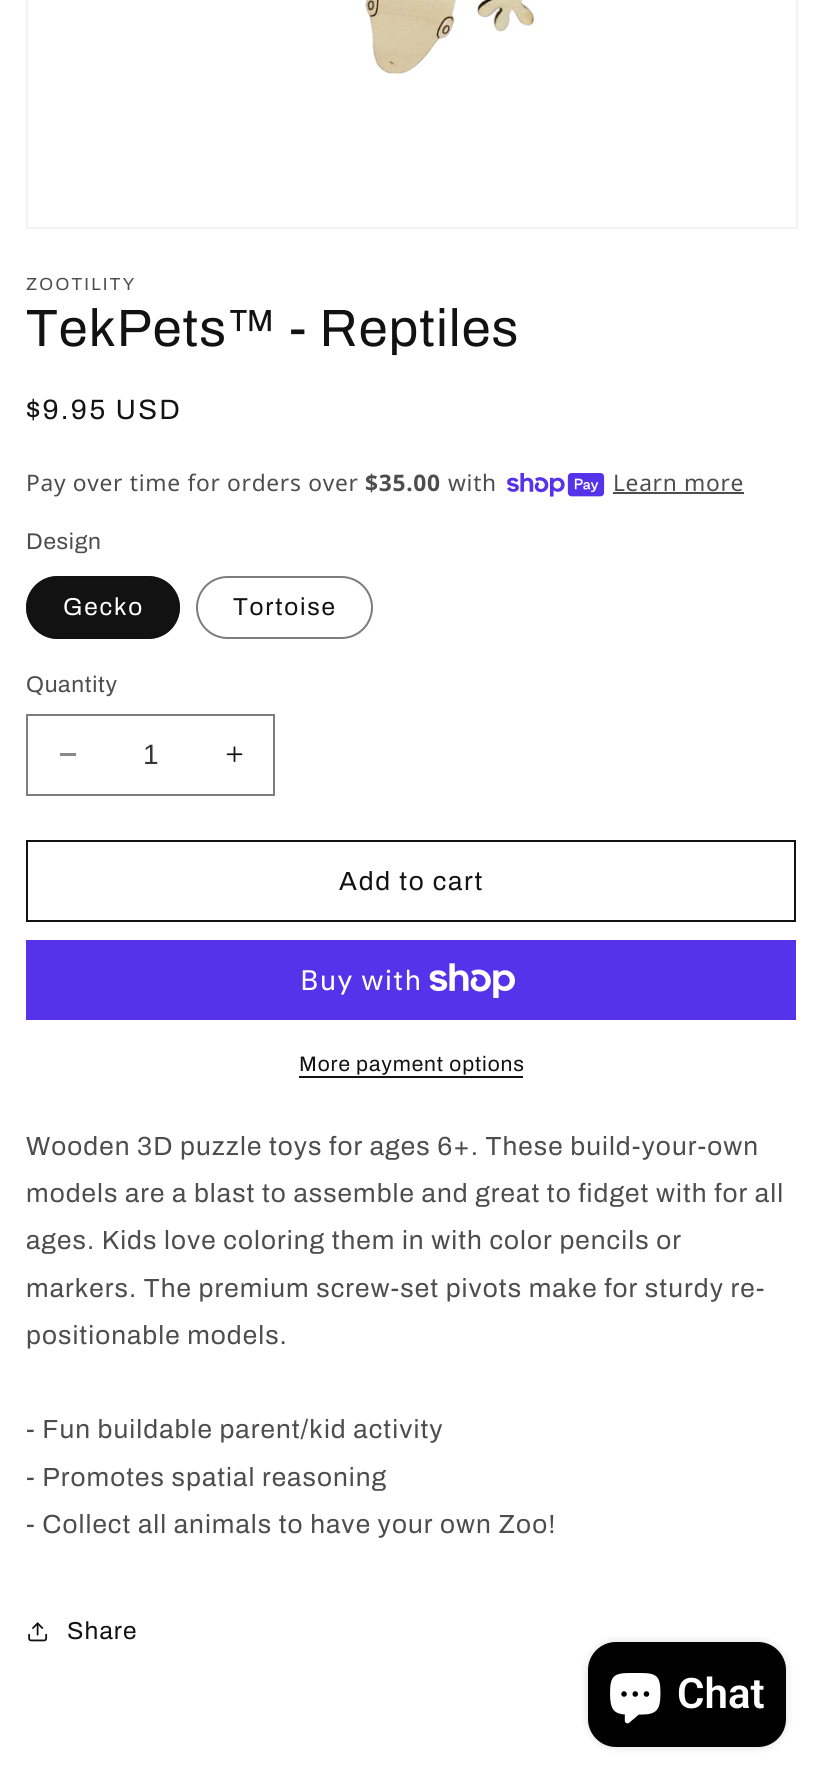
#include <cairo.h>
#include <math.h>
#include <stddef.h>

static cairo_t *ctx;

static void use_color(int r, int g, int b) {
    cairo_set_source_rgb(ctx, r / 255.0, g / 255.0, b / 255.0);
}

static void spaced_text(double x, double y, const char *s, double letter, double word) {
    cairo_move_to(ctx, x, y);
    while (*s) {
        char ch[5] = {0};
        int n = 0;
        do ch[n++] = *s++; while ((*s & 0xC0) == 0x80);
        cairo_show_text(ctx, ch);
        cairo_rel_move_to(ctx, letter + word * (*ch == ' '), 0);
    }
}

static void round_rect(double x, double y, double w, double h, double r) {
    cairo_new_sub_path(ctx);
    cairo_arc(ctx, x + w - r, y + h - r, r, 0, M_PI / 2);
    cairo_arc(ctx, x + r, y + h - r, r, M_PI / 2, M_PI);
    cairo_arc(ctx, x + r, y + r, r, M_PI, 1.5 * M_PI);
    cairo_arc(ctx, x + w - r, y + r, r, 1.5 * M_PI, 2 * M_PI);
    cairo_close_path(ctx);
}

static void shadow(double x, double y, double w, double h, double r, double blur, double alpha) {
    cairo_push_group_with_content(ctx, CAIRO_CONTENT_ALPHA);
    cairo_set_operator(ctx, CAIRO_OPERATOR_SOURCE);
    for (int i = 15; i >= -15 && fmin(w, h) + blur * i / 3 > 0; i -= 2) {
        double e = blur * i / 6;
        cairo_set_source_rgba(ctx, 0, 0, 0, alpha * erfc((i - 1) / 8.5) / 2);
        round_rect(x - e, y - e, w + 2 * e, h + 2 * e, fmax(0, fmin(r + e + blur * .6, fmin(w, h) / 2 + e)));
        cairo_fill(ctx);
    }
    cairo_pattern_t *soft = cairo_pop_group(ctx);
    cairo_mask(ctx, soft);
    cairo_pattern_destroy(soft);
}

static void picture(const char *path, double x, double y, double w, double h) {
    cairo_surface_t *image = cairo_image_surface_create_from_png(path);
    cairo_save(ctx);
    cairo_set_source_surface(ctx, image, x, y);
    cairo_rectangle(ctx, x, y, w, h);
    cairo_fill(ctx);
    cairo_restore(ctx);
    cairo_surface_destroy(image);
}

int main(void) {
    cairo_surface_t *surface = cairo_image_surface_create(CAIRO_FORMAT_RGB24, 823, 1782);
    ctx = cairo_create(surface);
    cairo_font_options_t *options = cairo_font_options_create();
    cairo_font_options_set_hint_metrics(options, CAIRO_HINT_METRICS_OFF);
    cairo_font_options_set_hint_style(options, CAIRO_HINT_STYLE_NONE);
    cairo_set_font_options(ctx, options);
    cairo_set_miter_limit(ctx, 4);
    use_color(255, 255, 255);
    cairo_paint(ctx);
    cairo_rectangle(ctx, 27, -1, 770, 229);
    use_color(243, 243, 243);
    cairo_stroke(ctx);
    picture("img1.png", 365, 0, 170, 74);
    cairo_select_font_face(ctx, "Archivo", CAIRO_FONT_SLANT_NORMAL, CAIRO_FONT_WEIGHT_NORMAL);
    cairo_set_font_size(ctx, 17.5);
    use_color(77, 77, 77);
    spaced_text(26, 290, "ZOOTILITY", 2.25, 0);
    cairo_set_font_size(ctx, 52.5);
    use_color(18, 18, 18);
    spaced_text(26, 346, "TekPets™ - Reptiles", 1.05, 0);
    cairo_set_font_size(ctx, 28);
    spaced_text(26, 419, "$9.95 USD", 2.25, 0);
    cairo_select_font_face(ctx, "Noto Sans", CAIRO_FONT_SLANT_NORMAL, CAIRO_FONT_WEIGHT_NORMAL);
    cairo_set_font_size(ctx, 22.75);
    use_color(77, 77, 77);
    spaced_text(26, 491, "Pay over time for orders over", 0.7, 0);
    cairo_select_font_face(ctx, "Noto Sans", CAIRO_FONT_SLANT_NORMAL, CAIRO_FONT_WEIGHT_BOLD);
    spaced_text(365, 491, "$35.00", 0.7, 0);
    cairo_select_font_face(ctx, "Noto Sans", CAIRO_FONT_SLANT_NORMAL, CAIRO_FONT_WEIGHT_NORMAL);
    spaced_text(448, 491, "with", 0.7, 0);
    picture("img2.png", 507, 473, 98, 24);
    spaced_text(613, 491, "Learn more", 0.7, 0);
    cairo_rectangle(ctx, 613, 492, 131, 2);
    cairo_fill(ctx);
    cairo_select_font_face(ctx, "Archivo", CAIRO_FONT_SLANT_NORMAL, CAIRO_FONT_WEIGHT_NORMAL);
    spaced_text(26, 549, "Design", 0.7, 0);
    use_color(18, 18, 18);
    round_rect(26, 576, 154, 63, 31.5);
    cairo_fill(ctx);
    round_rect(27, 577, 152, 61, 30.5);
    cairo_set_source_rgba(ctx, 0.071, 0.071, 0.071, 0.55);
    cairo_stroke(ctx);
    cairo_set_font_size(ctx, 24.5);
    use_color(255, 255, 255);
    spaced_text(63, 615, "Gecko", 1.75, 0);
    round_rect(197, 577, 175, 61, 30.5);
    use_color(125, 125, 125);
    cairo_stroke(ctx);
    use_color(18, 18, 18);
    spaced_text(233, 615, "Tortoise", 1.75, 0);
    cairo_set_font_size(ctx, 22.75);
    use_color(77, 77, 77);
    spaced_text(26, 692, "Quantity", 0.7, 0);
    use_color(137, 137, 137);
    cairo_rectangle(ctx, 60, 753, 16, 3);
    cairo_fill(ctx);
    picture("img3.png", 226, 746, 17, 17);
    cairo_rectangle(ctx, 27, 715, 247, 80);
    use_color(125, 125, 125);
    cairo_stroke(ctx);
    cairo_select_font_face(ctx, "Liberation Sans", CAIRO_FONT_SLANT_NORMAL, CAIRO_FONT_WEIGHT_NORMAL);
    cairo_set_font_size(ctx, 28);
    use_color(54, 54, 54);
    cairo_move_to(ctx, 143, 764);
    cairo_show_text(ctx, "1");
    cairo_rectangle(ctx, 27, 841, 768, 80);
    use_color(18, 18, 18);
    cairo_stroke(ctx);
    cairo_select_font_face(ctx, "Archivo", CAIRO_FONT_SLANT_NORMAL, CAIRO_FONT_WEIGHT_NORMAL);
    cairo_set_font_size(ctx, 26.25);
    spaced_text(339, 890, "Add to cart", 1.75, 0);
    use_color(84, 51, 235);
    cairo_rectangle(ctx, 26, 940, 770, 80);
    cairo_fill(ctx);
    cairo_select_font_face(ctx, "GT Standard", CAIRO_FONT_SLANT_NORMAL, CAIRO_FONT_WEIGHT_NORMAL);
    cairo_set_font_size(ctx, 28);
    use_color(255, 255, 255);
    spaced_text(300, 990, "Buy with", 1.05, 0);
    picture("img4.png", 429, 963, 86, 35);
    cairo_select_font_face(ctx, "Archivo", CAIRO_FONT_SLANT_NORMAL, CAIRO_FONT_WEIGHT_NORMAL);
    cairo_set_font_size(ctx, 21);
    use_color(18, 18, 18);
    spaced_text(299, 1071, "More payment options", 0.9, 0);
    cairo_rectangle(ctx, 299, 1076, 224, 2);
    cairo_fill(ctx);
    cairo_set_font_size(ctx, 26.25);
    use_color(77, 77, 77);
    spaced_text(26, 1155, "Wooden 3D puzzle toys for ages 6+. These build-your-own", 1.05, 0);
    spaced_text(26, 1202, "models are a blast to assemble and great to fidget with for all", 1.05, 0);
    spaced_text(26, 1249, "ages. Kids love coloring them in with color pencils or", 1.05, 0);
    spaced_text(26, 1297, "markers. The premium screw-set pivots make for sturdy re-", 1.05, 0);
    spaced_text(26, 1344, "positionable models.", 1.05, 0);
    spaced_text(26, 1438, "- Fun buildable parent/kid activity", 1.05, 0);
    spaced_text(26, 1486, "- Promotes spatial reasoning", 1.05, 0);
    spaced_text(26, 1533, "- Collect all animals to have your own Zoo!", 1.05, 0);
    picture("img5.png", 28, 1622, 20, 20);
    cairo_set_font_size(ctx, 24.5);
    use_color(18, 18, 18);
    spaced_text(67, 1639, "Share", 1.05, 0);
    use_color(0, 0, 0);
    shadow(588, 1642, 198, 105, 28, 4.5, 0.15);
    use_color(0, 0, 0);
    round_rect(588, 1642, 198, 105, 28);
    cairo_fill(ctx);
    picture("img6.png", 610, 1673, 51, 51);
    cairo_select_font_face(ctx, "Roboto SemiBold", CAIRO_FONT_SLANT_NORMAL, CAIRO_FONT_WEIGHT_NORMAL);
    cairo_set_font_size(ctx, 42);
    use_color(255, 255, 255);
    cairo_move_to(ctx, 677, 1708);
    cairo_show_text(ctx, "Chat");
    cairo_surface_write_to_png(surface, "result.png");
    cairo_font_options_destroy(options);
    cairo_destroy(ctx);
    cairo_surface_destroy(surface);
    return 0;
}
